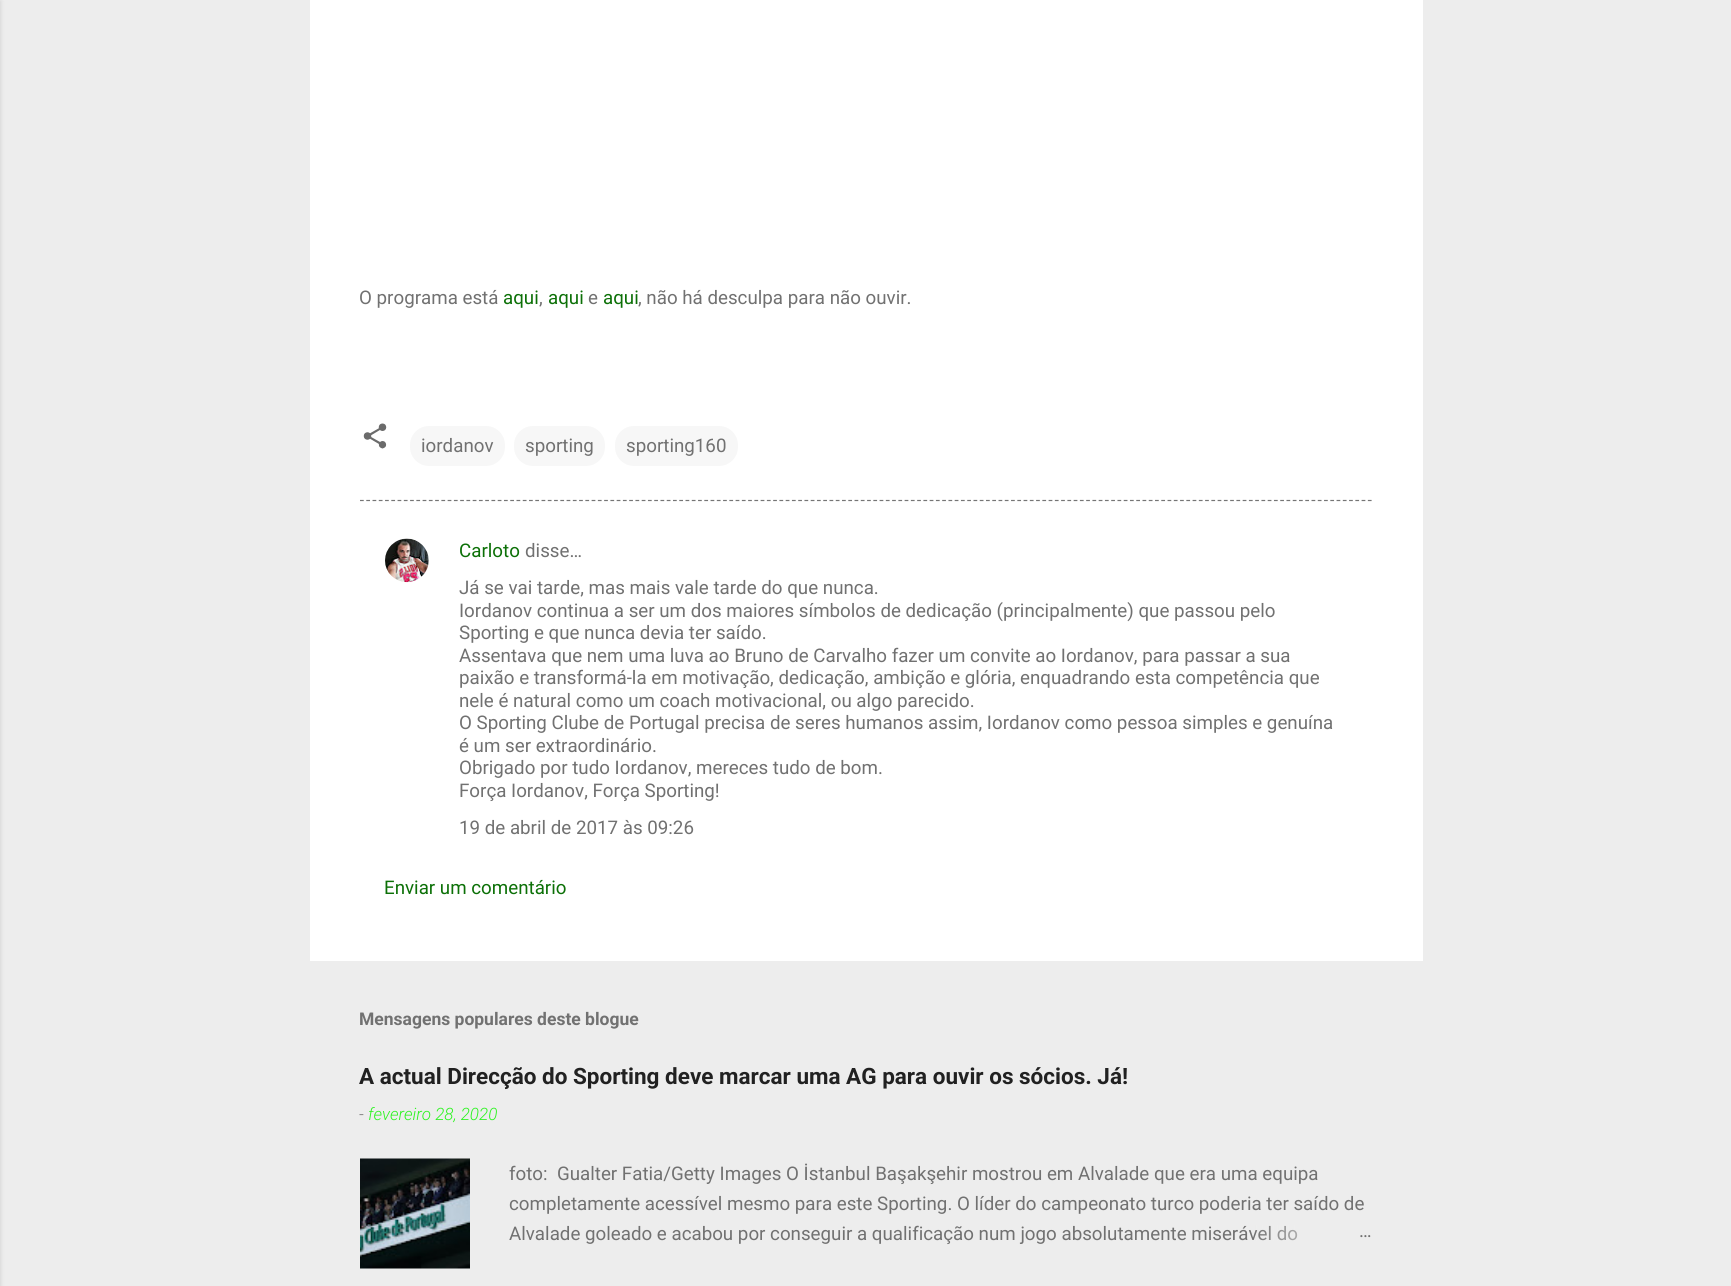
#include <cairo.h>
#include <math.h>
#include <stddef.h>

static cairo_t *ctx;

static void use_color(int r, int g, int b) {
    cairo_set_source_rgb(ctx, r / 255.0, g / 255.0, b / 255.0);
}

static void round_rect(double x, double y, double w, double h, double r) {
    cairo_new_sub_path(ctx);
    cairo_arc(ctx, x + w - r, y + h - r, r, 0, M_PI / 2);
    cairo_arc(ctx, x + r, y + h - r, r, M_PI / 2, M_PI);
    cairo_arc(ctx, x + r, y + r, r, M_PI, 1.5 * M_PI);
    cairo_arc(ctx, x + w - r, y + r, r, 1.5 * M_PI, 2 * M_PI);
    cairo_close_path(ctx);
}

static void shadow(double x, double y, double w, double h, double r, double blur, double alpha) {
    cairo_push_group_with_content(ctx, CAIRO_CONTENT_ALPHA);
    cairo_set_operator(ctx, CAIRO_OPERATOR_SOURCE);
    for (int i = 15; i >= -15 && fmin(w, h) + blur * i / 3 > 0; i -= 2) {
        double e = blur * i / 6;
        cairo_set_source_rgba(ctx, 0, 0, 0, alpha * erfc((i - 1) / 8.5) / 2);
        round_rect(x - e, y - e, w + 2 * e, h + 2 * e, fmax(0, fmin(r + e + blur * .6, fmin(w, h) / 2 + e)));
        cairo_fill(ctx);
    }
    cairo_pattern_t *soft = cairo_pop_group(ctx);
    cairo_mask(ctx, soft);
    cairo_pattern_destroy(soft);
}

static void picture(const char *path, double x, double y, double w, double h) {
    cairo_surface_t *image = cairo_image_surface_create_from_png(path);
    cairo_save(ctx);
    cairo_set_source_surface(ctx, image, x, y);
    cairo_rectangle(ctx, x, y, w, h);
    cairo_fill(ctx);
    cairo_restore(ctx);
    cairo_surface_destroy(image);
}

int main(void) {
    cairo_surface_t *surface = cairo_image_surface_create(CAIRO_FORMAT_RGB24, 1731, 1286);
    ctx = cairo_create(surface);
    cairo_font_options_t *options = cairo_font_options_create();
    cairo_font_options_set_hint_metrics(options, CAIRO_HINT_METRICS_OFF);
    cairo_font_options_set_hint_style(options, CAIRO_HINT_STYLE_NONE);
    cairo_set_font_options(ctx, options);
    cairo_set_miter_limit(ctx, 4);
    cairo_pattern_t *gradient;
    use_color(237, 237, 237);
    cairo_paint(ctx);
    use_color(0, 0, 0);
    shadow(-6, 1, 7, 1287, 0, 2, 0.1);
    use_color(255, 255, 255);
    cairo_rectangle(ctx, 310, 0, 1113, 961);
    cairo_fill(ctx);
    cairo_select_font_face(ctx, "Roboto", CAIRO_FONT_SLANT_NORMAL, CAIRO_FONT_WEIGHT_NORMAL);
    cairo_set_font_size(ctx, 18.75);
    use_color(113, 113, 113);
    cairo_move_to(ctx, 359, 304);
    cairo_show_text(ctx, "O programa está");
    use_color(12, 112, 7);
    cairo_move_to(ctx, 503, 304);
    cairo_show_text(ctx, "aqui");
    use_color(113, 113, 113);
    cairo_move_to(ctx, 539, 304);
    cairo_show_text(ctx, ",");
    use_color(12, 112, 7);
    cairo_move_to(ctx, 548, 304);
    cairo_show_text(ctx, "aqui");
    use_color(113, 113, 113);
    cairo_move_to(ctx, 588, 304);
    cairo_show_text(ctx, "e");
    use_color(12, 112, 7);
    cairo_move_to(ctx, 603, 304);
    cairo_show_text(ctx, "aqui");
    use_color(113, 113, 113);
    cairo_move_to(ctx, 638, 304);
    cairo_show_text(ctx, ", não há desculpa para não ouvir.");
    picture("img1.png", 363, 423, 24, 26);
    use_color(247, 247, 247);
    round_rect(410, 426, 95, 40, 19);
    cairo_fill(ctx);
    use_color(113, 113, 113);
    cairo_move_to(ctx, 421, 452);
    cairo_show_text(ctx, "iordanov");
    use_color(247, 247, 247);
    round_rect(514, 426, 91, 40, 19);
    cairo_fill(ctx);
    use_color(113, 113, 113);
    cairo_move_to(ctx, 525, 452);
    cairo_show_text(ctx, "sporting");
    use_color(247, 247, 247);
    round_rect(615, 426, 123, 40, 19);
    cairo_fill(ctx);
    use_color(113, 113, 113);
    cairo_move_to(ctx, 626, 452);
    cairo_show_text(ctx, "sporting160");
    cairo_new_path(ctx);
    cairo_move_to(ctx, 360, 500.5);
    cairo_line_to(ctx, 1372.5, 500.5);
    use_color(117, 117, 117);
    cairo_set_line_width(ctx, 1.2);
    cairo_set_dash(ctx, (double[]){3.75, 2.51}, 2, 0);
    cairo_stroke(ctx);
    picture("img2.png", 385, 538, 44, 45);
    use_color(12, 112, 7);
    cairo_move_to(ctx, 459, 557);
    cairo_show_text(ctx, "Carloto");
    use_color(113, 113, 113);
    cairo_move_to(ctx, 525, 557);
    cairo_show_text(ctx, "disse…");
    cairo_move_to(ctx, 459, 594);
    cairo_show_text(ctx, "Já se vai tarde, mas mais vale tarde do que nunca.");
    cairo_move_to(ctx, 459, 617);
    cairo_show_text(ctx, "Iordanov continua a ser um dos maiores símbolos de dedicação (principalmente) que passou pelo");
    cairo_move_to(ctx, 459, 639);
    cairo_show_text(ctx, "Sporting e que nunca devia ter saído.");
    cairo_move_to(ctx, 459, 662);
    cairo_show_text(ctx, "Assentava que nem uma luva ao Bruno de Carvalho fazer um convite ao Iordanov, para passar a sua");
    cairo_move_to(ctx, 459, 684);
    cairo_show_text(ctx, "paixão e transformá-la em motivação, dedicação, ambição e glória, enquadrando esta competência que");
    cairo_move_to(ctx, 459, 707);
    cairo_show_text(ctx, "nele é natural como um coach motivacional, ou algo parecido.");
    cairo_move_to(ctx, 459, 729);
    cairo_show_text(ctx, "O Sporting Clube de Portugal precisa de seres humanos assim, Iordanov como pessoa simples e genuína");
    cairo_move_to(ctx, 459, 752);
    cairo_show_text(ctx, "é um ser extraordinário.");
    cairo_move_to(ctx, 459, 774);
    cairo_show_text(ctx, "Obrigado por tudo Iordanov, mereces tudo de bom.");
    cairo_move_to(ctx, 459, 797);
    cairo_show_text(ctx, "Força Iordanov, Força Sporting!");
    cairo_move_to(ctx, 459, 834);
    cairo_show_text(ctx, "19 de abril de 2017 às 09:26");
    use_color(12, 112, 7);
    cairo_move_to(ctx, 384, 894);
    cairo_show_text(ctx, "Enviar um comentário");
    cairo_select_font_face(ctx, "Roboto", CAIRO_FONT_SLANT_NORMAL, CAIRO_FONT_WEIGHT_BOLD);
    cairo_set_font_size(ctx, 17.5);
    use_color(113, 113, 113);
    cairo_move_to(ctx, 359, 1025);
    cairo_show_text(ctx, "Mensagens populares deste blogue");
    cairo_set_font_size(ctx, 22.5);
    use_color(33, 33, 33);
    cairo_move_to(ctx, 359, 1084);
    cairo_show_text(ctx, "A actual Direcção do Sporting deve marcar uma AG para ouvir os sócios. Já!");
    cairo_select_font_face(ctx, "Roboto Light", CAIRO_FONT_SLANT_ITALIC, CAIRO_FONT_WEIGHT_NORMAL);
    cairo_set_font_size(ctx, 17);
    use_color(113, 113, 113);
    cairo_move_to(ctx, 359, 1120);
    cairo_show_text(ctx, "-");
    use_color(45, 243, 33);
    cairo_move_to(ctx, 368, 1120);
    cairo_show_text(ctx, "fevereiro 28, 2020");
    picture("img3.png", 360, 1158, 110, 111);
    cairo_select_font_face(ctx, "Roboto", CAIRO_FONT_SLANT_NORMAL, CAIRO_FONT_WEIGHT_NORMAL);
    cairo_set_font_size(ctx, 18.75);
    use_color(113, 113, 113);
    cairo_move_to(ctx, 509, 1180);
    cairo_show_text(ctx, "foto:  Gualter Fatia/Getty Images O İstanbul Başakşehir mostrou em Alvalade que era uma equipa");
    cairo_move_to(ctx, 509, 1210);
    cairo_show_text(ctx, "completamente acessível mesmo para este Sporting. O líder do campeonato turco poderia ter saído de");
    cairo_move_to(ctx, 509, 1240);
    cairo_show_text(ctx, "Alvalade goleado e acabou por conseguir a qualificação num jogo absolutamente miserável do");
    gradient = cairo_pattern_create_linear(1373, 1234, 1253, 1234);
    cairo_pattern_add_color_stop_rgba(gradient, 0, 0.933, 0.933, 0.933, 1);
    cairo_pattern_add_color_stop_rgba(gradient, 0.2, 0.933, 0.933, 0.933, 1);
    cairo_pattern_add_color_stop_rgba(gradient, 1, 0.933, 0.933, 0.933, 0);
    cairo_set_source(ctx, gradient);
    cairo_pattern_destroy(gradient);
    cairo_rectangle(ctx, 1255, 1225, 43, 16);
    cairo_fill(ctx);
    use_color(113, 113, 113);
    cairo_move_to(ctx, 1359, 1237);
    cairo_show_text(ctx, "…");
    cairo_surface_write_to_png(surface, "result.png");
    cairo_font_options_destroy(options);
    cairo_destroy(ctx);
    cairo_surface_destroy(surface);
    return 0;
}
